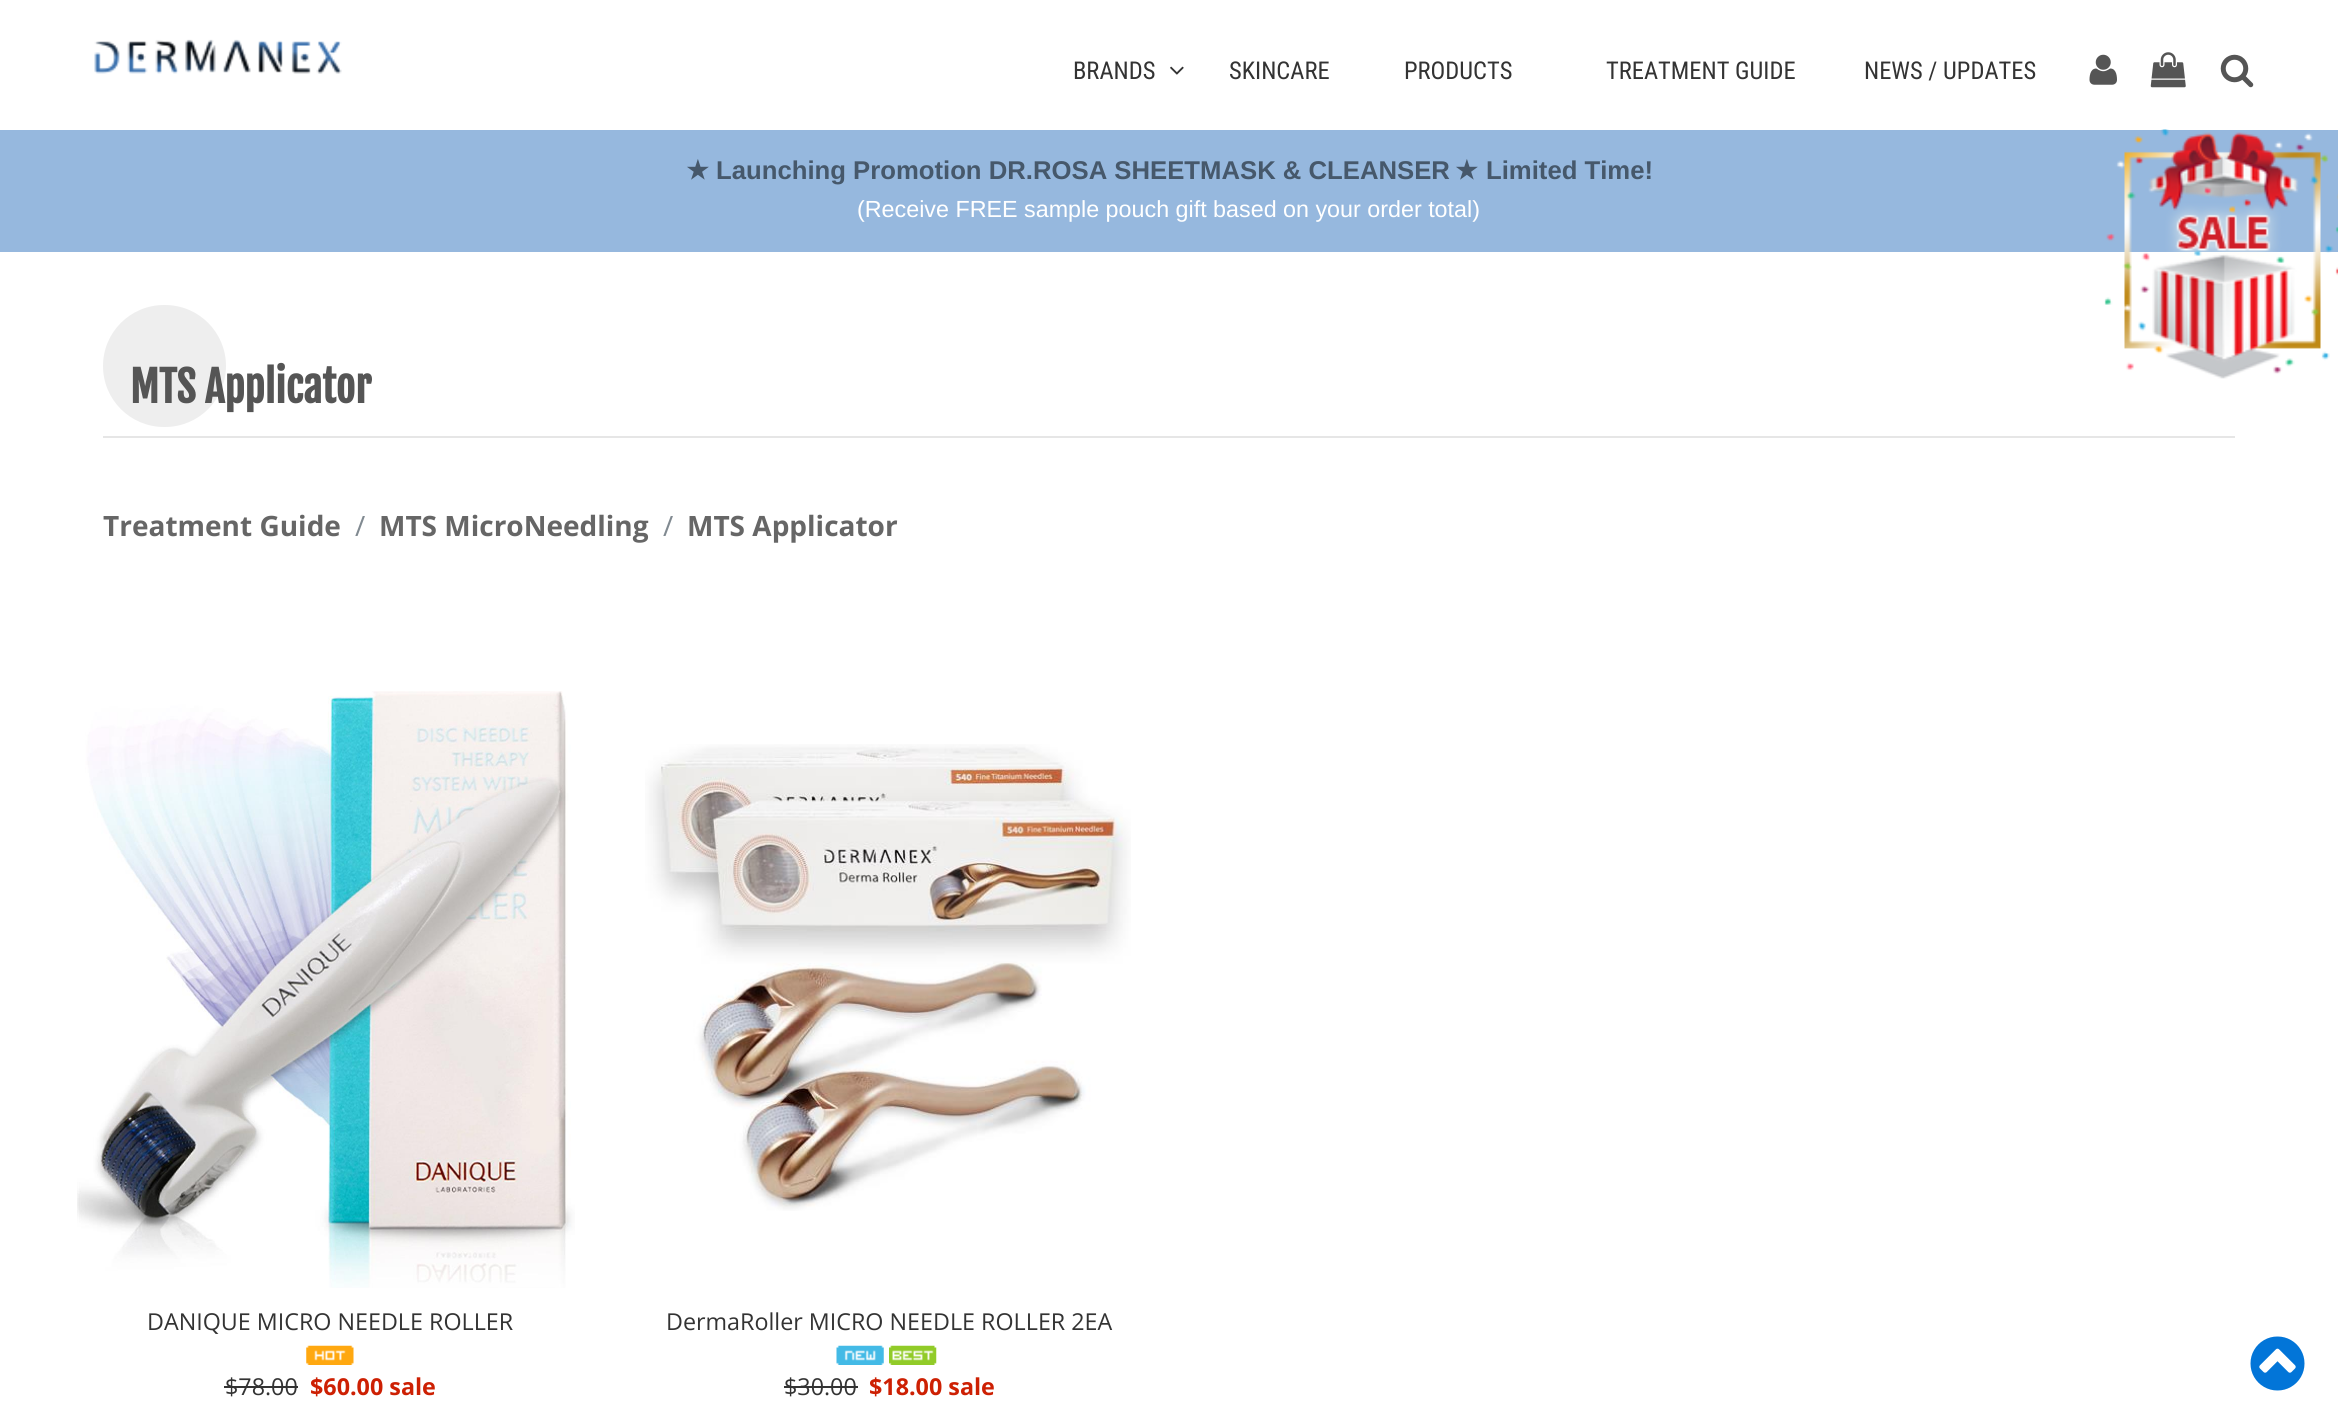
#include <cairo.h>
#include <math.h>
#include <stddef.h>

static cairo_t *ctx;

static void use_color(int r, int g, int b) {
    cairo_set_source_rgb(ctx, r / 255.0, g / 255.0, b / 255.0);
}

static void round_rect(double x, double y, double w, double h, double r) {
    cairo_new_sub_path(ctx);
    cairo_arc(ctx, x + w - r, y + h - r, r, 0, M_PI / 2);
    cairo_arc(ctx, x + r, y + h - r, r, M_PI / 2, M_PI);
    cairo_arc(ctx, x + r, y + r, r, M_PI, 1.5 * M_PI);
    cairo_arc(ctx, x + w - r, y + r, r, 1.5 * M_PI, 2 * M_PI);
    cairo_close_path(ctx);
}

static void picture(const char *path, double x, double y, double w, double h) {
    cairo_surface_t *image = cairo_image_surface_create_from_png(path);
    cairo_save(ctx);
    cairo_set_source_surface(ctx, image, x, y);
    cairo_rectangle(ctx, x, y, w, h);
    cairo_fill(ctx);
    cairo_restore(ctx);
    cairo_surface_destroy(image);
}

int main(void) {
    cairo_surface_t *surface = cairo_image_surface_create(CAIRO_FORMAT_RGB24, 2338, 1416);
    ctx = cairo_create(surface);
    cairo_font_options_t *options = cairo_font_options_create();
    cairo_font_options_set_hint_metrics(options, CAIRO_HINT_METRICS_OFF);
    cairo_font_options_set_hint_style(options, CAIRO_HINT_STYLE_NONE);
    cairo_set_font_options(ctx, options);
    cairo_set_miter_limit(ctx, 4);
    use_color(255, 255, 255);
    cairo_paint(ctx);
    picture("img1.png", 94, 39, 248, 35);
    cairo_select_font_face(ctx, "Roboto Condensed", CAIRO_FONT_SLANT_NORMAL, CAIRO_FONT_WEIGHT_NORMAL);
    cairo_set_font_size(ctx, 24.5);
    use_color(51, 51, 51);
    cairo_move_to(ctx, 1073, 79);
    cairo_show_text(ctx, "BRANDS");
    picture("img2.png", 1170, 66, 14, 9);
    cairo_move_to(ctx, 1229, 79);
    cairo_show_text(ctx, "SKINCARE");
    cairo_move_to(ctx, 1404, 79);
    cairo_show_text(ctx, "PRODUCTS");
    cairo_move_to(ctx, 1606, 79);
    cairo_show_text(ctx, "TREATMENT GUIDE");
    cairo_move_to(ctx, 1864, 79);
    cairo_show_text(ctx, "NEWS / UPDATES");
    picture("img3.png", 2089, 54, 28, 31);
    picture("img4.png", 2150, 52, 36, 36);
    picture("img5.png", 2220, 54, 34, 34);
    use_color(150, 184, 222);
    cairo_rectangle(ctx, 0, 130, 2338, 122);
    cairo_fill(ctx);
    cairo_select_font_face(ctx, "DejaVu Sans", CAIRO_FONT_SLANT_NORMAL, CAIRO_FONT_WEIGHT_BOLD);
    cairo_set_font_size(ctx, 25.7);
    use_color(70, 88, 107);
    cairo_move_to(ctx, 686, 179);
    cairo_show_text(ctx, "★");
    cairo_select_font_face(ctx, "Liberation Sans", CAIRO_FONT_SLANT_NORMAL, CAIRO_FONT_WEIGHT_BOLD);
    cairo_move_to(ctx, 716, 179);
    cairo_show_text(ctx, "Launching Promotion DR.ROSA SHEETMASK & CLEANSER");
    cairo_select_font_face(ctx, "DejaVu Sans", CAIRO_FONT_SLANT_NORMAL, CAIRO_FONT_WEIGHT_BOLD);
    cairo_move_to(ctx, 1455, 179);
    cairo_show_text(ctx, "★");
    cairo_select_font_face(ctx, "Liberation Sans", CAIRO_FONT_SLANT_NORMAL, CAIRO_FONT_WEIGHT_BOLD);
    cairo_move_to(ctx, 1486, 179);
    cairo_show_text(ctx, "Limited Time!");
    cairo_select_font_face(ctx, "Liberation Sans", CAIRO_FONT_SLANT_NORMAL, CAIRO_FONT_WEIGHT_NORMAL);
    cairo_set_font_size(ctx, 23.3);
    use_color(255, 255, 255);
    cairo_move_to(ctx, 857, 217);
    cairo_show_text(ctx, "(Receive FREE sample pouch gift based on your order total)");
    picture("img6.png", 2104, 129, 234, 250);
    use_color(238, 238, 238);
    round_rect(103, 305, 123, 122, 61);
    cairo_fill(ctx);
    cairo_select_font_face(ctx, "Fjalla One", CAIRO_FONT_SLANT_NORMAL, CAIRO_FONT_WEIGHT_BOLD);
    cairo_set_font_size(ctx, 42);
    use_color(85, 85, 85);
    cairo_move_to(ctx, 130, 403);
    cairo_show_text(ctx, "MTS Applicator");
    use_color(230, 230, 230);
    cairo_rectangle(ctx, 103, 436, 2132, 2);
    cairo_fill(ctx);
    cairo_select_font_face(ctx, "Open Sans", CAIRO_FONT_SLANT_NORMAL, CAIRO_FONT_WEIGHT_BOLD);
    cairo_set_font_size(ctx, 28);
    use_color(102, 102, 102);
    cairo_move_to(ctx, 103, 536);
    cairo_show_text(ctx, "Treatment Guide");
    cairo_select_font_face(ctx, "Open Sans", CAIRO_FONT_SLANT_NORMAL, CAIRO_FONT_WEIGHT_NORMAL);
    use_color(129, 138, 145);
    cairo_move_to(ctx, 355, 536);
    cairo_show_text(ctx, "/");
    cairo_select_font_face(ctx, "Open Sans", CAIRO_FONT_SLANT_NORMAL, CAIRO_FONT_WEIGHT_BOLD);
    use_color(102, 102, 102);
    cairo_move_to(ctx, 379, 536);
    cairo_show_text(ctx, "MTS MicroNeedling");
    cairo_select_font_face(ctx, "Open Sans", CAIRO_FONT_SLANT_NORMAL, CAIRO_FONT_WEIGHT_NORMAL);
    use_color(129, 138, 145);
    cairo_move_to(ctx, 663, 536);
    cairo_show_text(ctx, "/");
    cairo_select_font_face(ctx, "Open Sans", CAIRO_FONT_SLANT_NORMAL, CAIRO_FONT_WEIGHT_BOLD);
    use_color(102, 102, 102);
    cairo_move_to(ctx, 687, 536);
    cairo_show_text(ctx, "MTS Applicator");
    picture("img7.png", 77, 691, 498, 597);
    cairo_select_font_face(ctx, "Open Sans", CAIRO_FONT_SLANT_NORMAL, CAIRO_FONT_WEIGHT_NORMAL);
    cairo_set_font_size(ctx, 23.3);
    use_color(51, 51, 51);
    cairo_move_to(ctx, 147, 1330);
    cairo_show_text(ctx, "DANIQUE MICRO NEEDLE ROLLER");
    picture("img8.png", 306, 1345, 48, 20);
    cairo_move_to(ctx, 225, 1395);
    cairo_show_text(ctx, "$78.00");
    cairo_rectangle(ctx, 224, 1386, 74, 2);
    cairo_fill(ctx);
    cairo_select_font_face(ctx, "Open Sans", CAIRO_FONT_SLANT_NORMAL, CAIRO_FONT_WEIGHT_BOLD);
    use_color(205, 32, 3);
    cairo_move_to(ctx, 310, 1395);
    cairo_show_text(ctx, "$60.00 sale");
    picture("img9.png", 645, 744, 486, 467);
    cairo_select_font_face(ctx, "Open Sans", CAIRO_FONT_SLANT_NORMAL, CAIRO_FONT_WEIGHT_NORMAL);
    use_color(51, 51, 51);
    cairo_move_to(ctx, 666, 1330);
    cairo_show_text(ctx, "DermaRoller MICRO NEEDLE ROLLER 2EA");
    picture("img10.png", 836, 1345, 48, 20);
    picture("img11.png", 889, 1345, 48, 20);
    cairo_move_to(ctx, 784, 1395);
    cairo_show_text(ctx, "$30.00");
    cairo_rectangle(ctx, 784, 1386, 74, 2);
    cairo_fill(ctx);
    cairo_select_font_face(ctx, "Open Sans", CAIRO_FONT_SLANT_NORMAL, CAIRO_FONT_WEIGHT_BOLD);
    use_color(205, 32, 3);
    cairo_move_to(ctx, 869, 1395);
    cairo_show_text(ctx, "$18.00 sale");
    picture("img12.png", 2250, 1336, 55, 55);
    cairo_surface_write_to_png(surface, "result.png");
    cairo_font_options_destroy(options);
    cairo_destroy(ctx);
    cairo_surface_destroy(surface);
    return 0;
}
